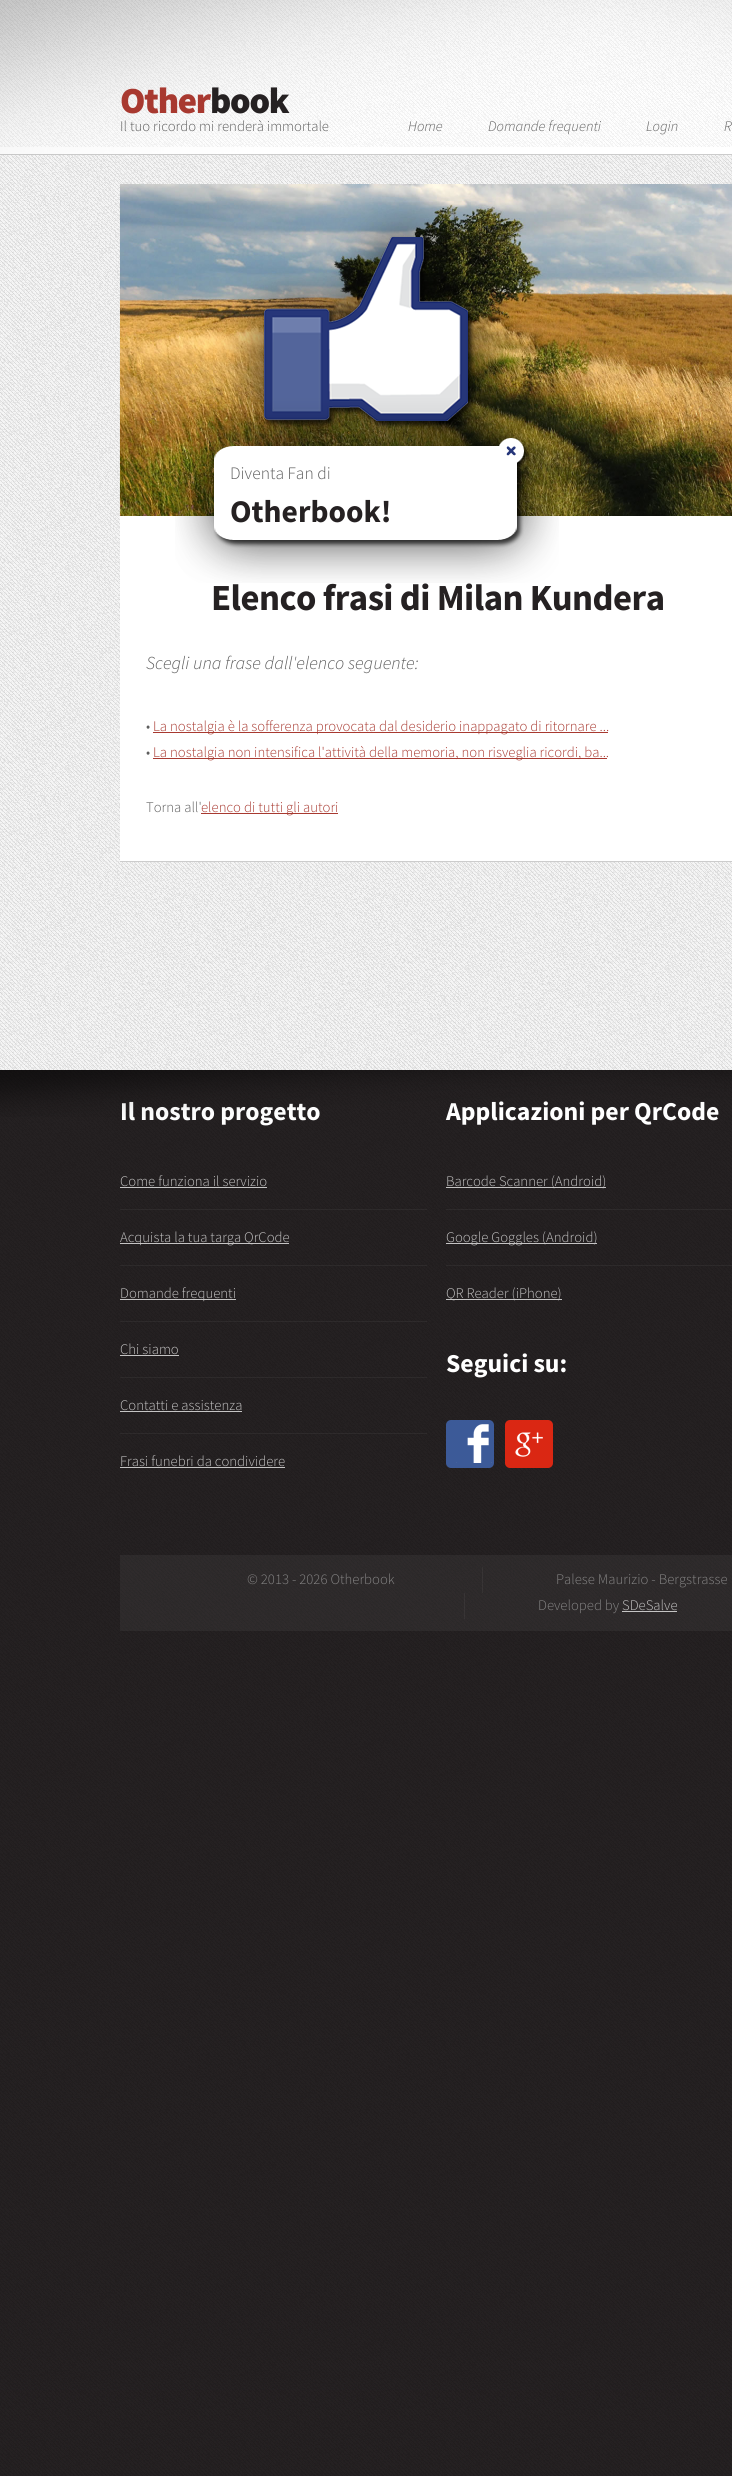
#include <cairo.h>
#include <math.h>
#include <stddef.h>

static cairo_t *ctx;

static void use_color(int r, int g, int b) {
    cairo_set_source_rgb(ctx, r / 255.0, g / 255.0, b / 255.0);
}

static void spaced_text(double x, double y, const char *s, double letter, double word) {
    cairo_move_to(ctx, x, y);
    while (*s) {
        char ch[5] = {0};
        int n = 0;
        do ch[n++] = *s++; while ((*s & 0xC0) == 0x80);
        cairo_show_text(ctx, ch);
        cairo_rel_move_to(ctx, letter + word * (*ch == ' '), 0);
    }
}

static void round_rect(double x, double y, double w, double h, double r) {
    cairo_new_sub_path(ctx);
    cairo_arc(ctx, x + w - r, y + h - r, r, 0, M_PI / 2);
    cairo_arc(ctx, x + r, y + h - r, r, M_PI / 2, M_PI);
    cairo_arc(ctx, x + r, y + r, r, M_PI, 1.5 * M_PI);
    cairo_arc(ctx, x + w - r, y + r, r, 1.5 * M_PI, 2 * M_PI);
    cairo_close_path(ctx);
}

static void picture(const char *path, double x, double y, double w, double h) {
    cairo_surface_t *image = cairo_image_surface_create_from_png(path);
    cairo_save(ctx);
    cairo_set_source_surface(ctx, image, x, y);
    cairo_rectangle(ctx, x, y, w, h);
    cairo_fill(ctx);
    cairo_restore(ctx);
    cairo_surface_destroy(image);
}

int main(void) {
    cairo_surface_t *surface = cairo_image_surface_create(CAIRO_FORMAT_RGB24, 732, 2476);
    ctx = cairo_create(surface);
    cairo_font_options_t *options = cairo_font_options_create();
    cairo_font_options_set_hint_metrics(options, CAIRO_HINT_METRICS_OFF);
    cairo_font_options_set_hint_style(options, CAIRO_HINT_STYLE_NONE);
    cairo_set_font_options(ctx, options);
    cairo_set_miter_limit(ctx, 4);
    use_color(37, 33, 34);
    cairo_paint(ctx);
    picture("img1.png", 0, 1070, 732, 1406);
    use_color(255, 255, 255);
    cairo_rectangle(ctx, 0, 0, 732, 154);
    cairo_fill(ctx);
    use_color(204, 204, 204);
    cairo_rectangle(ctx, 0, 154, 732, 1);
    cairo_fill(ctx);
    picture("img2.png", 0, 0, 732, 147);
    picture("img3.png", 0, 0, 732, 155);
    cairo_select_font_face(ctx, "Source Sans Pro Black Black", CAIRO_FONT_SLANT_NORMAL, CAIRO_FONT_WEIGHT_NORMAL);
    cairo_set_font_size(ctx, 36.75);
    use_color(168, 57, 48);
    spaced_text(120, 113, "Other", -1.25, 0);
    use_color(37, 33, 34);
    spaced_text(210, 113, "book", -1.25, 0);
    cairo_select_font_face(ctx, "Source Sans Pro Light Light", CAIRO_FONT_SLANT_NORMAL, CAIRO_FONT_WEIGHT_NORMAL);
    cairo_set_font_size(ctx, 14.7);
    use_color(93, 93, 93);
    cairo_move_to(ctx, 120, 131);
    cairo_show_text(ctx, "Il tuo ricordo mi renderà immortale");
    cairo_select_font_face(ctx, "Source Sans Pro Light Light", CAIRO_FONT_SLANT_ITALIC, CAIRO_FONT_WEIGHT_NORMAL);
    cairo_move_to(ctx, 408, 131);
    cairo_show_text(ctx, "Home");
    cairo_move_to(ctx, 488, 131);
    cairo_show_text(ctx, "Domande frequenti");
    cairo_move_to(ctx, 646, 131);
    cairo_show_text(ctx, "Login");
    cairo_move_to(ctx, 724, 131);
    cairo_show_text(ctx, "R");
    use_color(247, 247, 247);
    cairo_rectangle(ctx, 0, 155, 732, 915);
    cairo_fill(ctx);
    picture("img5.png", 0, 155, 732, 915);
    use_color(255, 255, 255);
    cairo_rectangle(ctx, 120, 516, 612, 345);
    cairo_fill(ctx);
    picture("img6.png", 119, 184, 613, 332);
    picture("img4.png", 175, 202, 384, 381);
    cairo_select_font_face(ctx, "Source Sans Pro Light Light", CAIRO_FONT_SLANT_NORMAL, CAIRO_FONT_WEIGHT_NORMAL);
    cairo_set_font_size(ctx, 17.5);
    use_color(93, 93, 93);
    cairo_move_to(ctx, 230, 479);
    cairo_show_text(ctx, "Diventa Fan di");
    cairo_select_font_face(ctx, "Source Sans Pro", CAIRO_FONT_SLANT_NORMAL, CAIRO_FONT_WEIGHT_BOLD);
    cairo_set_font_size(ctx, 31.5);
    use_color(37, 33, 34);
    cairo_move_to(ctx, 230, 522);
    cairo_show_text(ctx, "Otherbook!");
    use_color(204, 204, 204);
    cairo_rectangle(ctx, 120, 861, 612, 1);
    cairo_fill(ctx);
    cairo_set_font_size(ctx, 36.75);
    use_color(37, 33, 34);
    spaced_text(211, 610, "Elenco frasi di Milan Kundera", -0.55, 0);
    cairo_select_font_face(ctx, "Source Sans Pro Light Light", CAIRO_FONT_SLANT_ITALIC, CAIRO_FONT_WEIGHT_NORMAL);
    cairo_set_font_size(ctx, 18.3);
    use_color(93, 93, 93);
    cairo_move_to(ctx, 146, 669);
    cairo_show_text(ctx, "Scegli una frase dall'elenco seguente:");
    cairo_select_font_face(ctx, "Source Sans Pro Light Light", CAIRO_FONT_SLANT_NORMAL, CAIRO_FONT_WEIGHT_NORMAL);
    cairo_set_font_size(ctx, 14.7);
    cairo_move_to(ctx, 146, 731);
    cairo_show_text(ctx, "•");
    use_color(168, 57, 48);
    cairo_rectangle(ctx, 153, 732, 455, 1);
    cairo_fill(ctx);
    cairo_move_to(ctx, 153, 731);
    cairo_show_text(ctx, "La nostalgia è la sofferenza provocata dal desiderio inappagato di ritornare ...");
    use_color(93, 93, 93);
    cairo_move_to(ctx, 146, 757);
    cairo_show_text(ctx, "•");
    use_color(168, 57, 48);
    cairo_rectangle(ctx, 153, 758, 454, 1);
    cairo_fill(ctx);
    cairo_move_to(ctx, 153, 757);
    cairo_show_text(ctx, "La nostalgia non intensifica l'attività della memoria, non risveglia ricordi, ba...");
    use_color(93, 93, 93);
    cairo_move_to(ctx, 146, 812);
    cairo_show_text(ctx, "Torna all'");
    use_color(168, 57, 48);
    cairo_rectangle(ctx, 201, 813, 137, 1);
    cairo_fill(ctx);
    cairo_move_to(ctx, 201, 812);
    cairo_show_text(ctx, "elenco di tutti gli autori");
    cairo_select_font_face(ctx, "Source Sans Pro", CAIRO_FONT_SLANT_NORMAL, CAIRO_FONT_WEIGHT_BOLD);
    cairo_set_font_size(ctx, 25.75);
    use_color(255, 255, 255);
    cairo_move_to(ctx, 120, 1120);
    cairo_show_text(ctx, "Il nostro progetto");
    cairo_move_to(ctx, 446, 1120);
    cairo_show_text(ctx, "Applicazioni per QrCode");
    picture("img7.png", 0, 1070, 732, 47);
    cairo_select_font_face(ctx, "Source Sans Pro Light Light", CAIRO_FONT_SLANT_NORMAL, CAIRO_FONT_WEIGHT_NORMAL);
    cairo_set_font_size(ctx, 14.7);
    use_color(197, 196, 196);
    cairo_move_to(ctx, 120, 1186);
    cairo_show_text(ctx, "Come funziona il servizio");
    cairo_rectangle(ctx, 120, 1187, 147, 1);
    cairo_fill(ctx);
    cairo_set_source_rgba(ctx, 1, 1, 1, 0.05);
    cairo_rectangle(ctx, 120, 1209, 307, 1);
    cairo_fill(ctx);
    use_color(197, 196, 196);
    cairo_rectangle(ctx, 120, 1243, 169, 1);
    cairo_fill(ctx);
    cairo_move_to(ctx, 120, 1242);
    cairo_show_text(ctx, "Acquista la tua targa QrCode");
    cairo_set_source_rgba(ctx, 1, 1, 1, 0.05);
    cairo_rectangle(ctx, 120, 1265, 307, 1);
    cairo_fill(ctx);
    use_color(197, 196, 196);
    cairo_rectangle(ctx, 120, 1299, 116, 1);
    cairo_fill(ctx);
    cairo_move_to(ctx, 120, 1298);
    cairo_show_text(ctx, "Domande frequenti");
    cairo_set_source_rgba(ctx, 1, 1, 1, 0.05);
    cairo_rectangle(ctx, 120, 1321, 307, 1);
    cairo_fill(ctx);
    use_color(197, 196, 196);
    cairo_move_to(ctx, 120, 1354);
    cairo_show_text(ctx, "Chi siamo");
    cairo_rectangle(ctx, 120, 1355, 59, 1);
    cairo_fill(ctx);
    cairo_set_source_rgba(ctx, 1, 1, 1, 0.05);
    cairo_rectangle(ctx, 120, 1377, 307, 1);
    cairo_fill(ctx);
    use_color(197, 196, 196);
    cairo_move_to(ctx, 120, 1410);
    cairo_show_text(ctx, "Contatti e assistenza");
    cairo_rectangle(ctx, 120, 1411, 122, 1);
    cairo_fill(ctx);
    cairo_set_source_rgba(ctx, 1, 1, 1, 0.05);
    cairo_rectangle(ctx, 120, 1433, 307, 1);
    cairo_fill(ctx);
    use_color(197, 196, 196);
    cairo_move_to(ctx, 120, 1466);
    cairo_show_text(ctx, "Frasi funebri da condividere");
    cairo_rectangle(ctx, 120, 1467, 165, 1);
    cairo_fill(ctx);
    cairo_rectangle(ctx, 446, 1187, 160, 1);
    cairo_fill(ctx);
    cairo_move_to(ctx, 446, 1186);
    cairo_show_text(ctx, "Barcode Scanner (Android)");
    cairo_set_source_rgba(ctx, 1, 1, 1, 0.05);
    cairo_rectangle(ctx, 446, 1209, 286, 1);
    cairo_fill(ctx);
    use_color(197, 196, 196);
    cairo_rectangle(ctx, 446, 1243, 151, 1);
    cairo_fill(ctx);
    cairo_move_to(ctx, 446, 1242);
    cairo_show_text(ctx, "Google Goggles (Android)");
    cairo_set_source_rgba(ctx, 1, 1, 1, 0.05);
    cairo_rectangle(ctx, 446, 1265, 286, 1);
    cairo_fill(ctx);
    use_color(197, 196, 196);
    cairo_rectangle(ctx, 446, 1299, 116, 1);
    cairo_fill(ctx);
    cairo_move_to(ctx, 446, 1298);
    cairo_show_text(ctx, "QR Reader (iPhone)");
    cairo_select_font_face(ctx, "Source Sans Pro", CAIRO_FONT_SLANT_NORMAL, CAIRO_FONT_WEIGHT_BOLD);
    cairo_set_font_size(ctx, 25.75);
    use_color(255, 255, 255);
    cairo_move_to(ctx, 446, 1372);
    cairo_show_text(ctx, "Seguici su:");
    use_color(60, 90, 152);
    round_rect(446, 1420, 48, 48, 5);
    cairo_fill(ctx);
    picture("img8.png", 456, 1424, 36, 39);
    use_color(218, 39, 19);
    round_rect(505, 1420, 48, 48, 5);
    cairo_fill(ctx);
    picture("img9.png", 515, 1432, 28, 25);
    cairo_set_source_rgba(ctx, 1, 1, 1, 0.05);
    cairo_rectangle(ctx, 120, 1555, 612, 76);
    cairo_fill(ctx);
    cairo_select_font_face(ctx, "Source Sans Pro Light Light", CAIRO_FONT_SLANT_NORMAL, CAIRO_FONT_WEIGHT_NORMAL);
    cairo_set_font_size(ctx, 14.7);
    use_color(133, 132, 132);
    cairo_move_to(ctx, 247, 1584);
    cairo_show_text(ctx, "© 2013 - 2026 Otherbook");
    cairo_set_source_rgba(ctx, 1, 1, 1, 0.05);
    cairo_rectangle(ctx, 482, 1567, 1, 26);
    cairo_fill(ctx);
    use_color(133, 132, 132);
    cairo_move_to(ctx, 556, 1584);
    cairo_show_text(ctx, "Palese Maurizio - Bergstrasse");
    cairo_set_source_rgba(ctx, 1, 1, 1, 0.05);
    cairo_rectangle(ctx, 464, 1593, 1, 26);
    cairo_fill(ctx);
    use_color(133, 132, 132);
    cairo_move_to(ctx, 538, 1610);
    cairo_show_text(ctx, "Developed by");
    use_color(197, 196, 196);
    cairo_move_to(ctx, 622, 1610);
    cairo_show_text(ctx, "SDeSalve");
    cairo_rectangle(ctx, 622, 1611, 55, 1);
    cairo_fill(ctx);
    cairo_surface_write_to_png(surface, "result.png");
    cairo_font_options_destroy(options);
    cairo_destroy(ctx);
    cairo_surface_destroy(surface);
    return 0;
}
